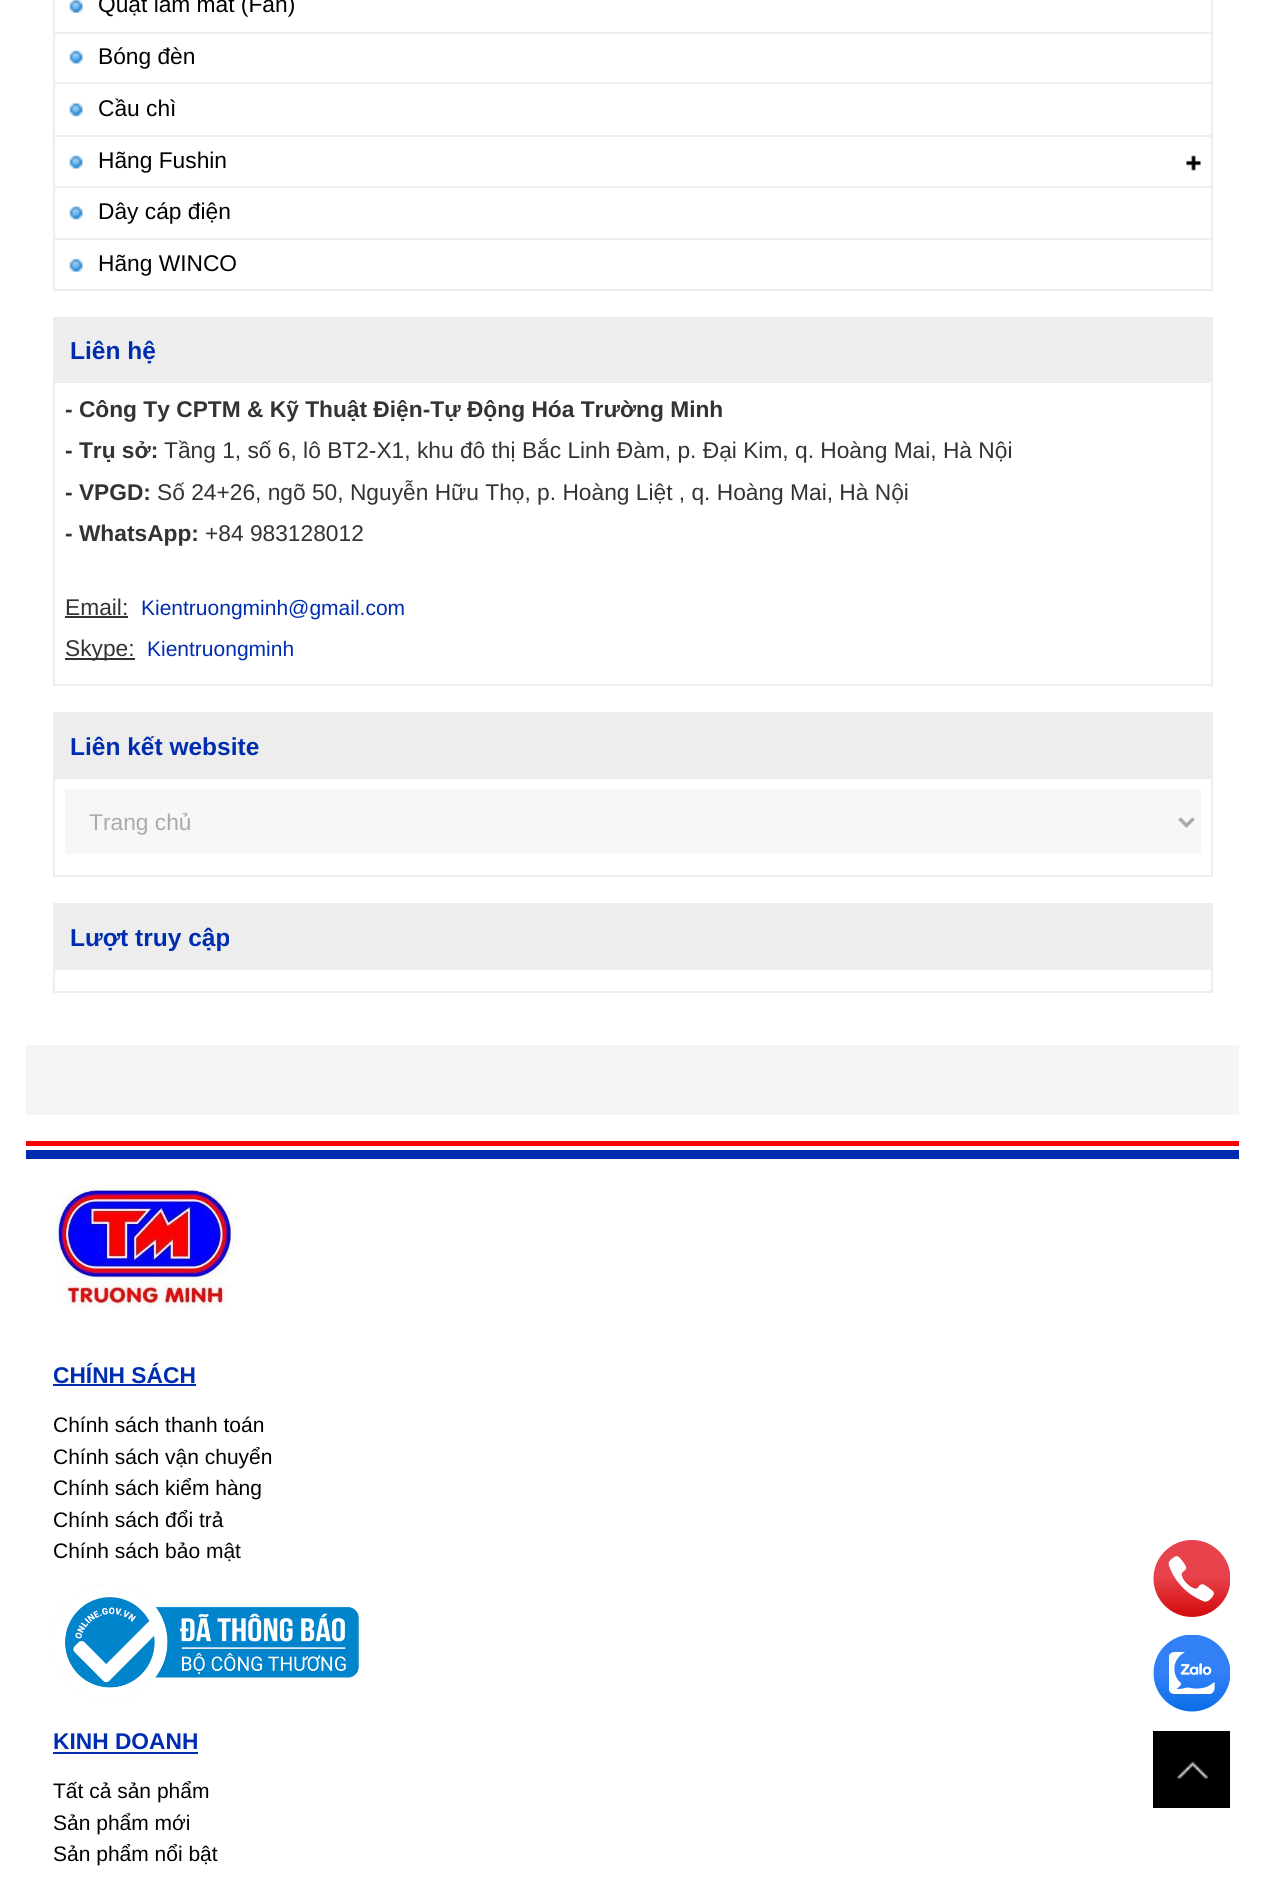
#include <cairo.h>
#include <math.h>
#include <stddef.h>

static cairo_t *ctx;

static void use_color(int r, int g, int b) {
    cairo_set_source_rgb(ctx, r / 255.0, g / 255.0, b / 255.0);
}

static void picture(const char *path, double x, double y, double w, double h) {
    cairo_surface_t *image = cairo_image_surface_create_from_png(path);
    cairo_save(ctx);
    cairo_set_source_surface(ctx, image, x, y);
    cairo_rectangle(ctx, x, y, w, h);
    cairo_fill(ctx);
    cairo_restore(ctx);
    cairo_surface_destroy(image);
}

int main(void) {
    cairo_surface_t *surface = cairo_image_surface_create(CAIRO_FORMAT_RGB24, 1265, 1877);
    ctx = cairo_create(surface);
    cairo_font_options_t *options = cairo_font_options_create();
    cairo_font_options_set_hint_metrics(options, CAIRO_HINT_METRICS_OFF);
    cairo_font_options_set_hint_style(options, CAIRO_HINT_STYLE_NONE);
    cairo_set_font_options(ctx, options);
    cairo_set_miter_limit(ctx, 4);
    use_color(255, 255, 255);
    cairo_paint(ctx);
    use_color(237, 237, 237);
    cairo_rectangle(ctx, 1211, 0, 2, 291);
    cairo_fill(ctx);
    cairo_rectangle(ctx, 53, 289, 1160, 2);
    cairo_fill(ctx);
    cairo_rectangle(ctx, 53, 0, 2, 291);
    cairo_fill(ctx);
    cairo_rectangle(ctx, 54, 32, 1157, 2);
    cairo_fill(ctx);
    picture("img1.png", 69, 0, 14, 13);
    cairo_select_font_face(ctx, "Liberation Sans", CAIRO_FONT_SLANT_NORMAL, CAIRO_FONT_WEIGHT_NORMAL);
    cairo_set_font_size(ctx, 22.75);
    use_color(0, 0, 0);
    cairo_move_to(ctx, 98, 12);
    cairo_show_text(ctx, "Quạt làm mát (Fan)");
    use_color(237, 237, 237);
    cairo_rectangle(ctx, 54, 82, 1157, 2);
    cairo_fill(ctx);
    picture("img2.png", 69, 50, 14, 14);
    use_color(0, 0, 0);
    cairo_move_to(ctx, 98, 64);
    cairo_show_text(ctx, "Bóng đèn");
    use_color(237, 237, 237);
    cairo_rectangle(ctx, 54, 135, 1157, 2);
    cairo_fill(ctx);
    picture("img3.png", 69, 103, 14, 14);
    use_color(0, 0, 0);
    cairo_move_to(ctx, 98, 116);
    cairo_show_text(ctx, "Cầu chì");
    use_color(237, 237, 237);
    cairo_rectangle(ctx, 54, 186, 1157, 2);
    cairo_fill(ctx);
    picture("img2.png", 69, 155, 14, 14);
    use_color(0, 0, 0);
    cairo_move_to(ctx, 98, 168);
    cairo_show_text(ctx, "Hãng Fushin");
    picture("img4.png", 1186, 155, 15, 16);
    use_color(237, 237, 237);
    cairo_rectangle(ctx, 54, 238, 1157, 2);
    cairo_fill(ctx);
    picture("img5.png", 69, 206, 14, 14);
    use_color(0, 0, 0);
    cairo_move_to(ctx, 98, 219);
    cairo_show_text(ctx, "Dây cáp điện");
    picture("img6.png", 69, 258, 14, 14);
    cairo_move_to(ctx, 98, 271);
    cairo_show_text(ctx, "Hãng WINCO");
    use_color(237, 237, 237);
    cairo_rectangle(ctx, 53, 317, 1160, 66);
    cairo_fill(ctx);
    cairo_select_font_face(ctx, "Liberation Sans", CAIRO_FONT_SLANT_NORMAL, CAIRO_FONT_WEIGHT_BOLD);
    cairo_set_font_size(ctx, 24.5);
    use_color(0, 45, 176);
    cairo_move_to(ctx, 70, 359);
    cairo_show_text(ctx, "Liên hệ");
    use_color(237, 237, 237);
    cairo_rectangle(ctx, 1211, 383, 2, 303);
    cairo_fill(ctx);
    cairo_rectangle(ctx, 53, 684, 1160, 2);
    cairo_fill(ctx);
    cairo_rectangle(ctx, 53, 383, 2, 303);
    cairo_fill(ctx);
    cairo_set_font_size(ctx, 22.75);
    use_color(51, 51, 51);
    cairo_move_to(ctx, 65, 417);
    cairo_show_text(ctx, "- Công Ty CPTM & Kỹ Thuật Điện-Tự Động Hóa Trường Minh");
    cairo_move_to(ctx, 65, 458);
    cairo_show_text(ctx, "- Trụ sở:");
    cairo_select_font_face(ctx, "Liberation Sans", CAIRO_FONT_SLANT_NORMAL, CAIRO_FONT_WEIGHT_NORMAL);
    cairo_move_to(ctx, 164, 458);
    cairo_show_text(ctx, "Tầng 1, số 6, lô BT2-X1, khu đô thị Bắc Linh Đàm, p. Đại Kim, q. Hoàng Mai, Hà Nội");
    cairo_select_font_face(ctx, "Liberation Sans", CAIRO_FONT_SLANT_NORMAL, CAIRO_FONT_WEIGHT_BOLD);
    cairo_move_to(ctx, 65, 500);
    cairo_show_text(ctx, "- VPGD:");
    cairo_select_font_face(ctx, "Liberation Sans", CAIRO_FONT_SLANT_NORMAL, CAIRO_FONT_WEIGHT_NORMAL);
    cairo_move_to(ctx, 157, 500);
    cairo_show_text(ctx, "Số 24+26, ngõ 50, Nguyễn Hữu Thọ, p. Hoàng Liệt , q. Hoàng Mai, Hà Nội");
    cairo_select_font_face(ctx, "Liberation Sans", CAIRO_FONT_SLANT_NORMAL, CAIRO_FONT_WEIGHT_BOLD);
    cairo_move_to(ctx, 65, 541);
    cairo_show_text(ctx, "- WhatsApp:");
    cairo_select_font_face(ctx, "Liberation Sans", CAIRO_FONT_SLANT_NORMAL, CAIRO_FONT_WEIGHT_NORMAL);
    cairo_move_to(ctx, 205, 541);
    cairo_show_text(ctx, "+84 983128012");
    cairo_move_to(ctx, 65, 615);
    cairo_show_text(ctx, "Email:");
    cairo_rectangle(ctx, 65, 616, 63, 2);
    cairo_fill(ctx);
    cairo_set_font_size(ctx, 21);
    use_color(0, 45, 176);
    cairo_move_to(ctx, 141, 615);
    cairo_show_text(ctx, "Kientruongminh@gmail.com");
    use_color(51, 51, 51);
    cairo_rectangle(ctx, 65, 658, 70, 2);
    cairo_fill(ctx);
    cairo_set_font_size(ctx, 22.75);
    cairo_move_to(ctx, 65, 656);
    cairo_show_text(ctx, "Skype:");
    cairo_set_font_size(ctx, 21);
    use_color(0, 45, 176);
    cairo_move_to(ctx, 147, 656);
    cairo_show_text(ctx, "Kientruongminh");
    use_color(237, 237, 237);
    cairo_rectangle(ctx, 53, 712, 1160, 67);
    cairo_fill(ctx);
    cairo_select_font_face(ctx, "Liberation Sans", CAIRO_FONT_SLANT_NORMAL, CAIRO_FONT_WEIGHT_BOLD);
    cairo_set_font_size(ctx, 24.5);
    use_color(0, 45, 176);
    cairo_move_to(ctx, 70, 755);
    cairo_show_text(ctx, "Liên kết website");
    use_color(237, 237, 237);
    cairo_rectangle(ctx, 1211, 779, 2, 98);
    cairo_fill(ctx);
    cairo_rectangle(ctx, 53, 875, 1160, 2);
    cairo_fill(ctx);
    cairo_rectangle(ctx, 53, 779, 2, 98);
    cairo_fill(ctx);
    use_color(247, 247, 247);
    cairo_rectangle(ctx, 65, 789, 1136, 65);
    cairo_fill(ctx);
    cairo_new_path(ctx);
    cairo_move_to(ctx, 1179.5, 818.5);
    cairo_line_to(ctx, 1186.5, 825.5);
    cairo_line_to(ctx, 1193.5, 818.5);
    use_color(170, 170, 170);
    cairo_set_line_width(ctx, 3.5);
    cairo_stroke(ctx);
    cairo_select_font_face(ctx, "Liberation Sans", CAIRO_FONT_SLANT_NORMAL, CAIRO_FONT_WEIGHT_NORMAL);
    cairo_set_font_size(ctx, 22.75);
    cairo_move_to(ctx, 89, 830);
    cairo_show_text(ctx, "Trang chủ");
    use_color(237, 237, 237);
    cairo_rectangle(ctx, 53, 903, 1160, 67);
    cairo_fill(ctx);
    cairo_select_font_face(ctx, "Liberation Sans", CAIRO_FONT_SLANT_NORMAL, CAIRO_FONT_WEIGHT_BOLD);
    cairo_set_font_size(ctx, 24.5);
    use_color(0, 45, 176);
    cairo_move_to(ctx, 70, 946);
    cairo_show_text(ctx, "Lượt truy cập");
    use_color(237, 237, 237);
    cairo_rectangle(ctx, 1211, 970, 2, 22);
    cairo_fill(ctx);
    cairo_rectangle(ctx, 53, 991, 1160, 2);
    cairo_fill(ctx);
    cairo_rectangle(ctx, 53, 970, 2, 22);
    cairo_fill(ctx);
    use_color(245, 245, 245);
    cairo_rectangle(ctx, 26, 1045, 1213, 70);
    cairo_fill(ctx);
    use_color(255, 0, 0);
    cairo_rectangle(ctx, 26, 1141, 1213, 5);
    cairo_fill(ctx);
    use_color(0, 45, 176);
    cairo_rectangle(ctx, 26, 1150, 1213, 9);
    cairo_fill(ctx);
    picture("img7.png", 52, 1184, 184, 127);
    cairo_set_font_size(ctx, 22.75);
    cairo_move_to(ctx, 53, 1383);
    cairo_show_text(ctx, "CHÍNH SÁCH");
    cairo_rectangle(ctx, 53, 1384, 143, 2);
    cairo_fill(ctx);
    cairo_select_font_face(ctx, "Liberation Sans", CAIRO_FONT_SLANT_NORMAL, CAIRO_FONT_WEIGHT_NORMAL);
    cairo_set_font_size(ctx, 21);
    use_color(0, 0, 0);
    cairo_move_to(ctx, 53, 1432);
    cairo_show_text(ctx, "Chính sách thanh toán");
    cairo_move_to(ctx, 53, 1464);
    cairo_show_text(ctx, "Chính sách vận chuyển");
    cairo_move_to(ctx, 53, 1495);
    cairo_show_text(ctx, "Chính sách kiểm hàng");
    cairo_move_to(ctx, 53, 1527);
    cairo_show_text(ctx, "Chính sách đổi trả");
    cairo_move_to(ctx, 53, 1558);
    cairo_show_text(ctx, "Chính sách bảo mật");
    picture("img8.png", 52, 1584, 307, 116);
    cairo_select_font_face(ctx, "Liberation Sans", CAIRO_FONT_SLANT_NORMAL, CAIRO_FONT_WEIGHT_BOLD);
    cairo_set_font_size(ctx, 22.75);
    use_color(0, 45, 176);
    cairo_move_to(ctx, 53, 1749);
    cairo_show_text(ctx, "KINH DOANH");
    cairo_rectangle(ctx, 53, 1752, 145, 2);
    cairo_fill(ctx);
    cairo_select_font_face(ctx, "Liberation Sans", CAIRO_FONT_SLANT_NORMAL, CAIRO_FONT_WEIGHT_NORMAL);
    cairo_set_font_size(ctx, 21);
    use_color(0, 0, 0);
    cairo_move_to(ctx, 53, 1798);
    cairo_show_text(ctx, "Tất cả sản phẩm");
    cairo_move_to(ctx, 53, 1830);
    cairo_show_text(ctx, "Sản phẩm mới");
    cairo_move_to(ctx, 53, 1861);
    cairo_show_text(ctx, "Sản phẩm nổi bật");
    picture("img9.png", 1153, 1540, 77, 77);
    picture("img10.png", 1153, 1635, 77, 77);
    cairo_rectangle(ctx, 1153, 1731, 77, 77);
    cairo_fill(ctx);
    picture("img11.png", 1177, 1761, 31, 18);
    cairo_surface_write_to_png(surface, "result.png");
    cairo_font_options_destroy(options);
    cairo_destroy(ctx);
    cairo_surface_destroy(surface);
    return 0;
}
